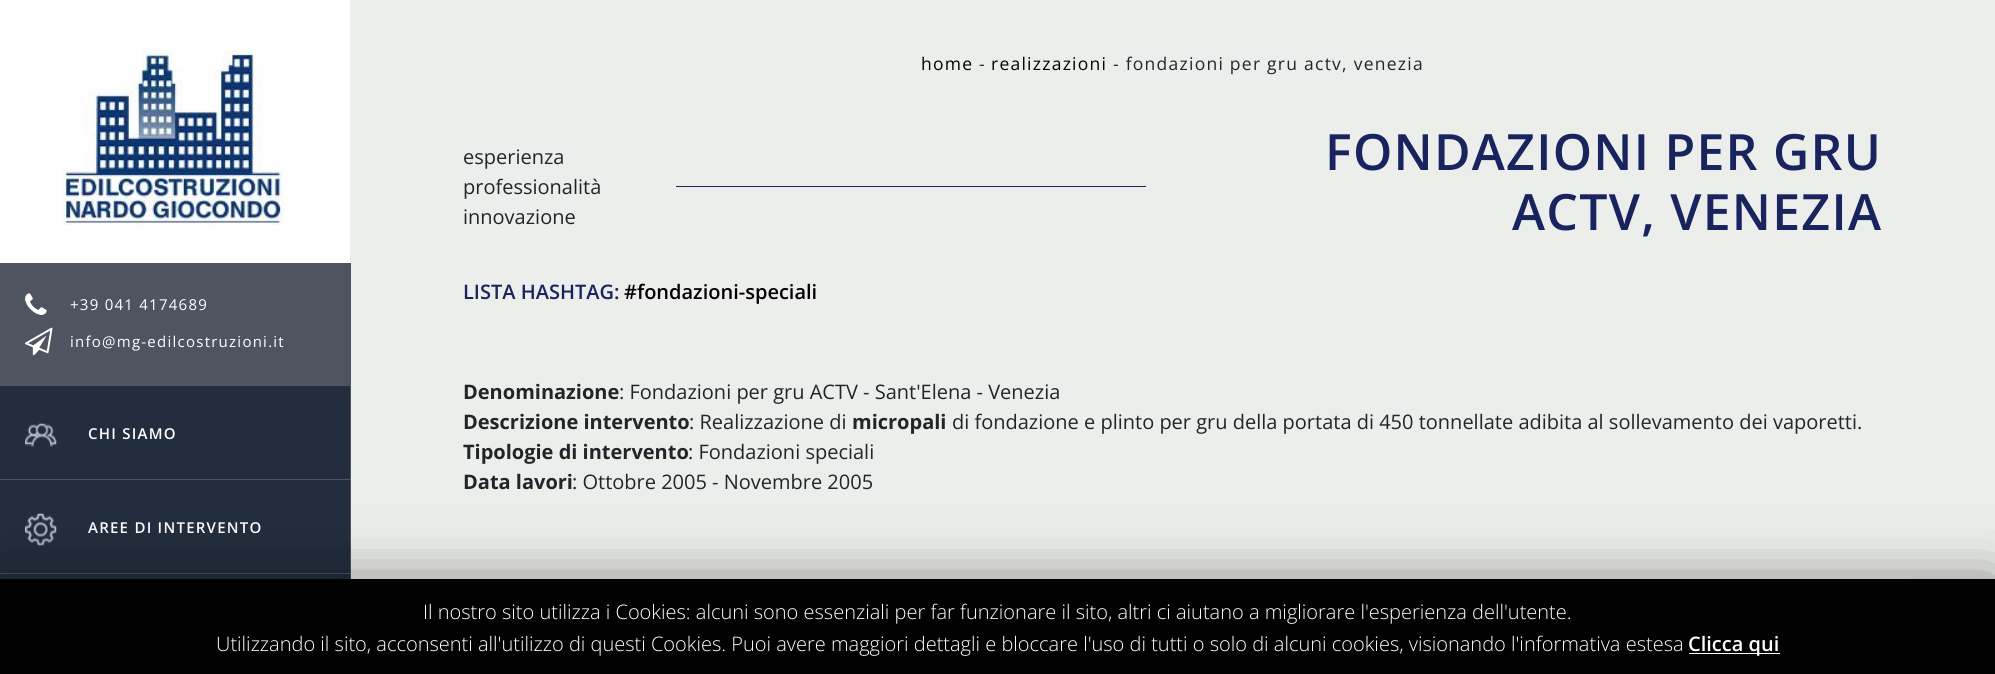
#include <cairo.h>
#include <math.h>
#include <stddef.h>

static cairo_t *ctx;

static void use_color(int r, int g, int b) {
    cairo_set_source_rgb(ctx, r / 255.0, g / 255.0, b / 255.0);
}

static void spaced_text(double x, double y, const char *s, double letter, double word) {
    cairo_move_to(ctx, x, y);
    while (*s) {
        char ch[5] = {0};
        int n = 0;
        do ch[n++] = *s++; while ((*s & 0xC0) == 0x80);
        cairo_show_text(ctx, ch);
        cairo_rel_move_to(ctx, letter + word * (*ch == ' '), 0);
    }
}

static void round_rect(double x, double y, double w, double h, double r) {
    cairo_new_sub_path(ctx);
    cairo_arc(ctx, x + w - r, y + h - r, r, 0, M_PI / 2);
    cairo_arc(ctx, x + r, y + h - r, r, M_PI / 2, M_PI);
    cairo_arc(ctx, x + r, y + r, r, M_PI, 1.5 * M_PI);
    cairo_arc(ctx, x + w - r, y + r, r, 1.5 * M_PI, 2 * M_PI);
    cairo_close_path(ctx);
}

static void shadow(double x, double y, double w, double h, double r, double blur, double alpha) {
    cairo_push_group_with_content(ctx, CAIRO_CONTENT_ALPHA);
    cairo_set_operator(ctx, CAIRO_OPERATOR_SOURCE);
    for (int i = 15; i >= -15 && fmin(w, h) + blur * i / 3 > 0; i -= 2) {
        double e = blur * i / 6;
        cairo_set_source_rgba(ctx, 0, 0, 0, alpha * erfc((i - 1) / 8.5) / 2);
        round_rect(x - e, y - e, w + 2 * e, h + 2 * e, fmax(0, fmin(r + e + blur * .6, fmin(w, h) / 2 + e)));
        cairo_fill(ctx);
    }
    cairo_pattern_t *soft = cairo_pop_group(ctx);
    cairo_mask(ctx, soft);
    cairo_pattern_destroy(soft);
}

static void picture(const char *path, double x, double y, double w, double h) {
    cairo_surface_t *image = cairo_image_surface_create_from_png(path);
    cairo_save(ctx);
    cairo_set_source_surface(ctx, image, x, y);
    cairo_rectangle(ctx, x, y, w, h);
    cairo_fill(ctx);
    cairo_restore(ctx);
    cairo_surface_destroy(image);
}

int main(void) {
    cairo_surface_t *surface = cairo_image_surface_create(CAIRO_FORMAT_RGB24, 1995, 674);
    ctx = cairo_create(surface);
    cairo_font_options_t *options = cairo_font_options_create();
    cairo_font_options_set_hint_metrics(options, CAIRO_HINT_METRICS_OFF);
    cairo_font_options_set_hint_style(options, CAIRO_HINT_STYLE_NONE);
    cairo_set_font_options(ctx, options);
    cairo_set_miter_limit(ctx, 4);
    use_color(255, 255, 255);
    cairo_paint(ctx);
    use_color(34, 46, 62);
    cairo_rectangle(ctx, 0, 386, 350, 193);
    cairo_fill(ctx);
    picture("img1.png", 62, 50, 222, 175);
    use_color(236, 238, 235);
    cairo_rectangle(ctx, 350, 0, 1645, 579);
    cairo_fill(ctx);
    use_color(78, 84, 96);
    cairo_rectangle(ctx, 0, 263, 351, 123);
    cairo_fill(ctx);
    picture("img2.png", 25, 293, 22, 22);
    cairo_select_font_face(ctx, "Open Sans", CAIRO_FONT_SLANT_NORMAL, CAIRO_FONT_WEIGHT_NORMAL);
    cairo_set_font_size(ctx, 15);
    use_color(255, 255, 255);
    spaced_text(70, 310, "+39 041 4174689", 1.25, 0);
    picture("img3.png", 25, 327, 28, 29);
    spaced_text(70, 347, "info@mg-edilcostruzioni.it", 1.25, 0);
    use_color(78, 84, 96);
    cairo_rectangle(ctx, 350, 386, 1, 193);
    cairo_fill(ctx);
    cairo_rectangle(ctx, 0, 479, 351, 1);
    cairo_fill(ctx);
    picture("img4.png", 25, 423, 32, 24);
    cairo_select_font_face(ctx, "Open Sans SemiBold", CAIRO_FONT_SLANT_NORMAL, CAIRO_FONT_WEIGHT_NORMAL);
    use_color(255, 255, 255);
    spaced_text(88, 439, "CHI SIAMO", 1.25, 0);
    use_color(78, 84, 96);
    cairo_rectangle(ctx, 0, 573, 351, 1);
    cairo_fill(ctx);
    picture("img5.png", 25, 513, 32, 33);
    use_color(255, 255, 255);
    spaced_text(88, 533, "AREE DI INTERVENTO", 1.25, 0);
    cairo_select_font_face(ctx, "Open Sans", CAIRO_FONT_SLANT_NORMAL, CAIRO_FONT_WEIGHT_NORMAL);
    cairo_set_font_size(ctx, 17.5);
    use_color(0, 0, 0);
    spaced_text(921, 70, "home", 1.25, 0);
    use_color(33, 37, 41);
    spaced_text(979, 70, "-", 1.25, 0);
    use_color(0, 0, 0);
    spaced_text(991, 70, "realizzazioni", 1.25, 0);
    use_color(33, 37, 41);
    spaced_text(1113, 70, "- fondazioni per gru actv, venezia", 1.25, 0);
    cairo_set_font_size(ctx, 20);
    cairo_move_to(ctx, 463, 164);
    cairo_show_text(ctx, "esperienza");
    cairo_move_to(ctx, 463, 194);
    cairo_show_text(ctx, "professionalità");
    cairo_move_to(ctx, 463, 224);
    cairo_show_text(ctx, "innovazione");
    use_color(25, 35, 94);
    cairo_rectangle(ctx, 676, 186, 470, 1);
    cairo_fill(ctx);
    cairo_select_font_face(ctx, "Open Sans SemiBold", CAIRO_FONT_SLANT_NORMAL, CAIRO_FONT_WEIGHT_NORMAL);
    cairo_set_font_size(ctx, 50);
    spaced_text(1325, 170, "FONDAZIONI PER GRU", 1.25, 0);
    spaced_text(1512, 230, "ACTV, VENEZIA", 1.25, 0);
    cairo_set_font_size(ctx, 20);
    cairo_move_to(ctx, 463, 299);
    cairo_show_text(ctx, "LISTA HASHTAG:");
    use_color(0, 0, 0);
    cairo_move_to(ctx, 624, 299);
    cairo_show_text(ctx, "#fondazioni-speciali");
    cairo_select_font_face(ctx, "Open Sans", CAIRO_FONT_SLANT_NORMAL, CAIRO_FONT_WEIGHT_BOLD);
    use_color(33, 37, 41);
    cairo_move_to(ctx, 463, 399);
    cairo_show_text(ctx, "Denominazione");
    cairo_select_font_face(ctx, "Open Sans", CAIRO_FONT_SLANT_NORMAL, CAIRO_FONT_WEIGHT_NORMAL);
    cairo_move_to(ctx, 619, 399);
    cairo_show_text(ctx, ": Fondazioni per gru ACTV - Sant'Elena - Venezia");
    cairo_select_font_face(ctx, "Open Sans", CAIRO_FONT_SLANT_NORMAL, CAIRO_FONT_WEIGHT_BOLD);
    cairo_move_to(ctx, 463, 429);
    cairo_show_text(ctx, "Descrizione intervento");
    cairo_select_font_face(ctx, "Open Sans", CAIRO_FONT_SLANT_NORMAL, CAIRO_FONT_WEIGHT_NORMAL);
    cairo_move_to(ctx, 689, 429);
    cairo_show_text(ctx, ": Realizzazione di");
    cairo_select_font_face(ctx, "Open Sans", CAIRO_FONT_SLANT_NORMAL, CAIRO_FONT_WEIGHT_BOLD);
    cairo_move_to(ctx, 852, 429);
    cairo_show_text(ctx, "micropali");
    cairo_select_font_face(ctx, "Open Sans", CAIRO_FONT_SLANT_NORMAL, CAIRO_FONT_WEIGHT_NORMAL);
    cairo_move_to(ctx, 952, 429);
    cairo_show_text(ctx, "di fondazione e plinto per gru della portata di 450 tonnellate adibita al sollevamento dei vaporetti.");
    cairo_select_font_face(ctx, "Open Sans", CAIRO_FONT_SLANT_NORMAL, CAIRO_FONT_WEIGHT_BOLD);
    cairo_move_to(ctx, 463, 459);
    cairo_show_text(ctx, "Tipologie di intervento");
    cairo_select_font_face(ctx, "Open Sans", CAIRO_FONT_SLANT_NORMAL, CAIRO_FONT_WEIGHT_NORMAL);
    cairo_move_to(ctx, 688, 459);
    cairo_show_text(ctx, ": Fondazioni speciali");
    cairo_select_font_face(ctx, "Open Sans", CAIRO_FONT_SLANT_NORMAL, CAIRO_FONT_WEIGHT_BOLD);
    cairo_move_to(ctx, 463, 489);
    cairo_show_text(ctx, "Data lavori");
    cairo_select_font_face(ctx, "Open Sans", CAIRO_FONT_SLANT_NORMAL, CAIRO_FONT_WEIGHT_NORMAL);
    cairo_move_to(ctx, 572, 489);
    cairo_show_text(ctx, ": Ottobre 2005 - Novembre 2005");
    use_color(0, 0, 0);
    shadow(0, 585, 1995, 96, 0, 31, 0.5);
    use_color(128, 128, 128);
    shadow(1908, 583, 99, 75, 2.5, 3, 1);
    use_color(2, 2, 2);
    cairo_rectangle(ctx, 0, 579, 1995, 95);
    cairo_fill(ctx);
    cairo_select_font_face(ctx, "Open Sans Light", CAIRO_FONT_SLANT_NORMAL, CAIRO_FONT_WEIGHT_NORMAL);
    use_color(255, 255, 255);
    cairo_move_to(ctx, 423, 619);
    cairo_show_text(ctx, "Il nostro sito utilizza i Cookies: alcuni sono essenziali per far funzionare il sito, altri ci aiutano a migliorare l'esperienza dell'utente.");
    cairo_move_to(ctx, 216, 651);
    cairo_show_text(ctx, "Utilizzando il sito, acconsenti all'utilizzo di questi Cookies. Puoi avere maggiori dettagli e bloccare l'uso di tutti o solo di alcuni cookies, visionando l'informativa estesa");
    cairo_rectangle(ctx, 1689, 653, 91, 1);
    cairo_fill(ctx);
    cairo_select_font_face(ctx, "Open Sans SemiBold", CAIRO_FONT_SLANT_NORMAL, CAIRO_FONT_WEIGHT_NORMAL);
    cairo_move_to(ctx, 1688, 651);
    cairo_show_text(ctx, "Clicca qui");
    cairo_surface_write_to_png(surface, "result.png");
    cairo_font_options_destroy(options);
    cairo_destroy(ctx);
    cairo_surface_destroy(surface);
    return 0;
}
